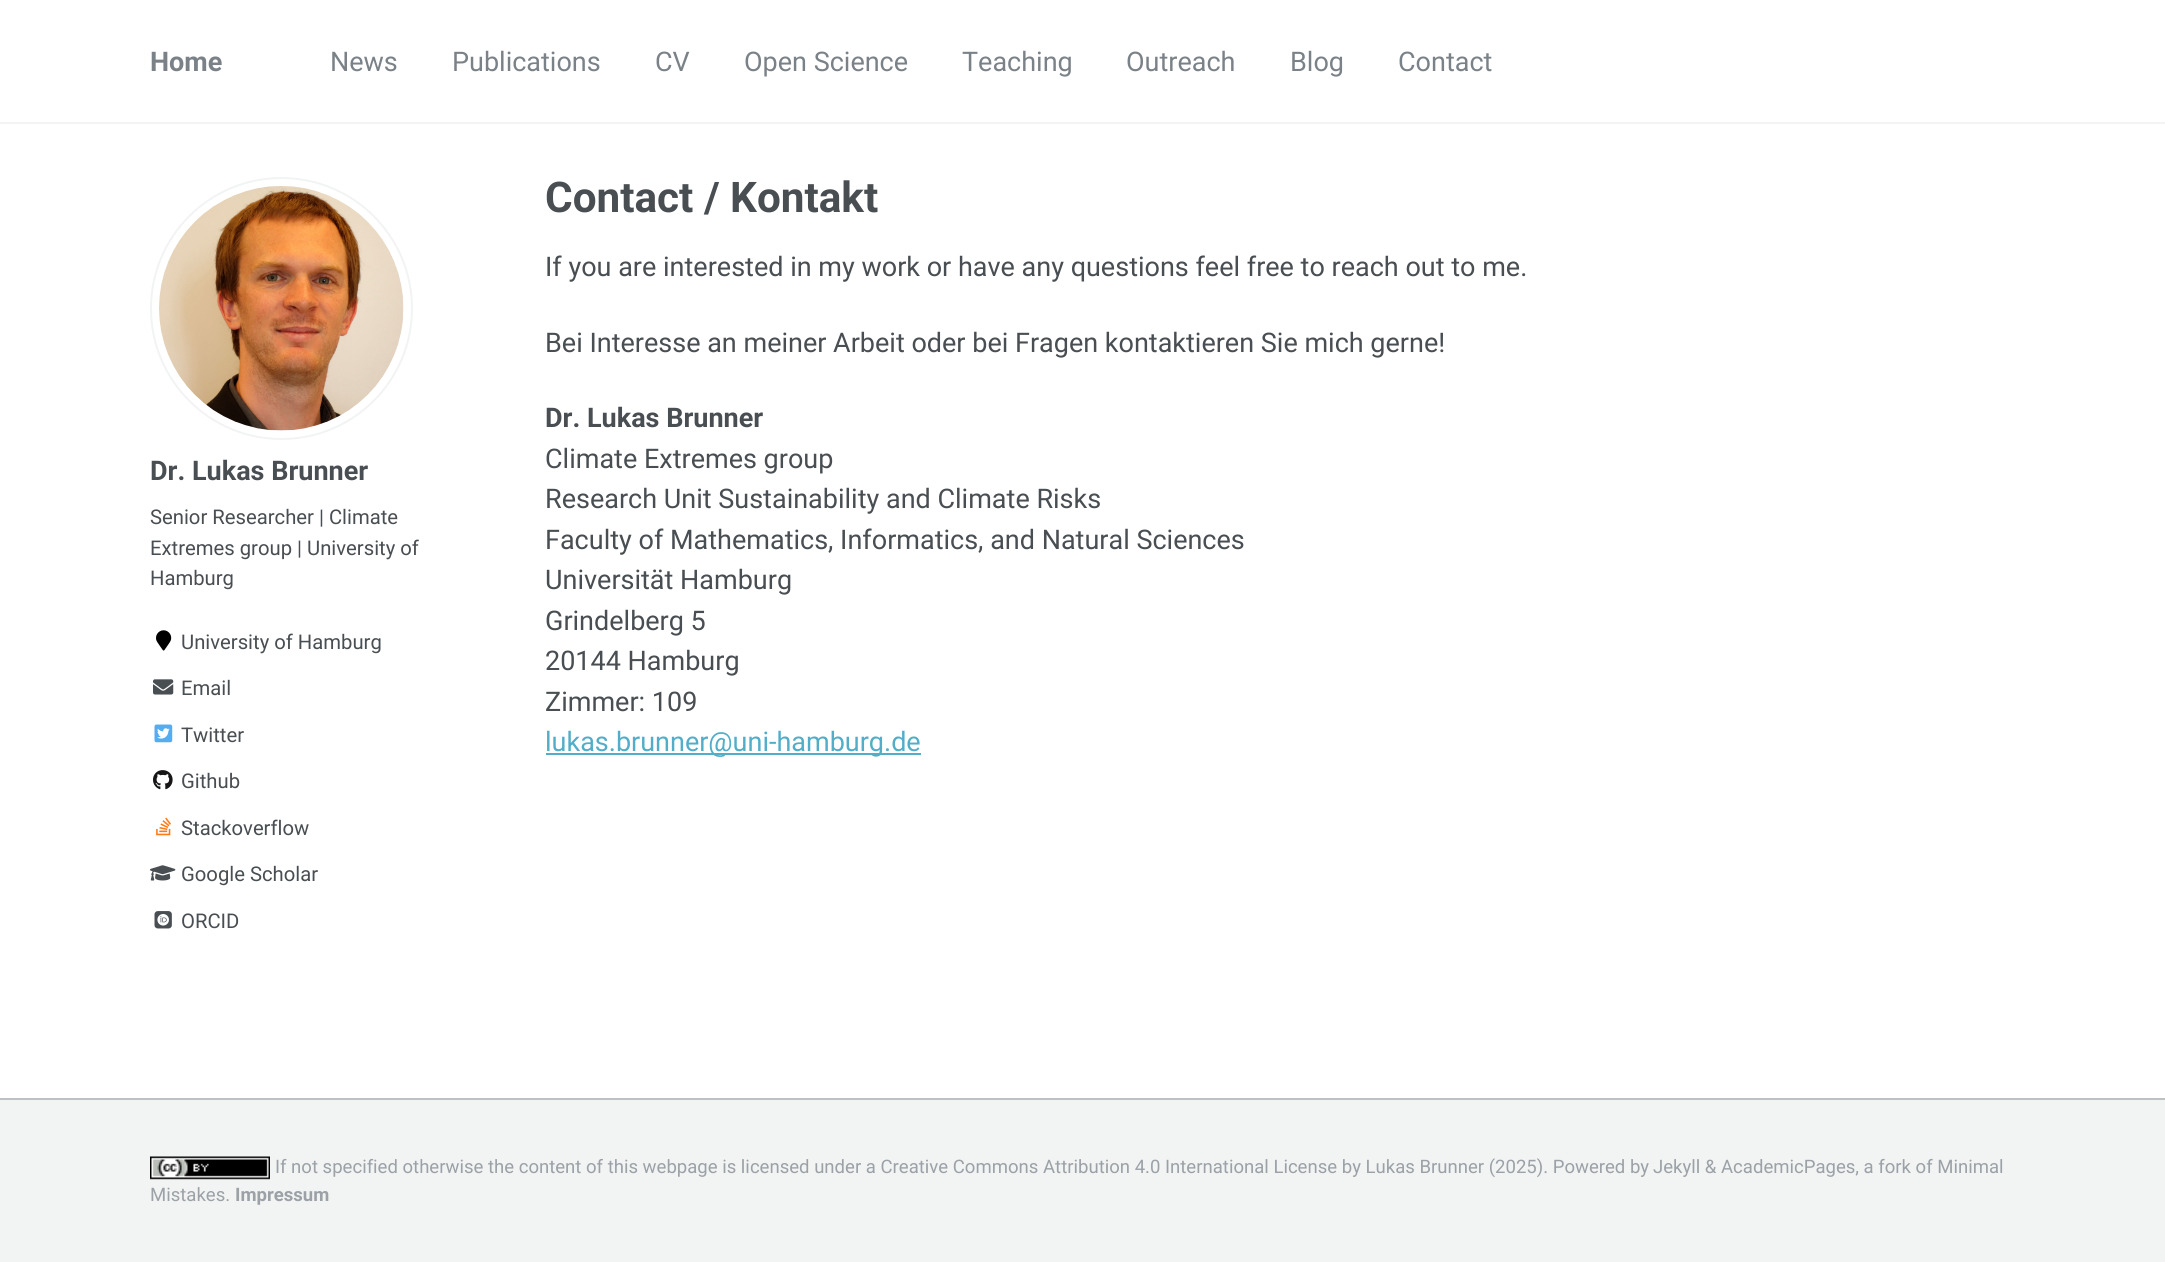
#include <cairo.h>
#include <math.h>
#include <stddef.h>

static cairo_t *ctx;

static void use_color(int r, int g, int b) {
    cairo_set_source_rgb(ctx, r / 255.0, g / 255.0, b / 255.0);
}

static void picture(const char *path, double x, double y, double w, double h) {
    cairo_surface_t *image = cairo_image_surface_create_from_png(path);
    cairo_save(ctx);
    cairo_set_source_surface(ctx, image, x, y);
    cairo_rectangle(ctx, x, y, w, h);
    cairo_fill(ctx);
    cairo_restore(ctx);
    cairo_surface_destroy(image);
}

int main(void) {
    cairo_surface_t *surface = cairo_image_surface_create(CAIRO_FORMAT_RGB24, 2165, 1262);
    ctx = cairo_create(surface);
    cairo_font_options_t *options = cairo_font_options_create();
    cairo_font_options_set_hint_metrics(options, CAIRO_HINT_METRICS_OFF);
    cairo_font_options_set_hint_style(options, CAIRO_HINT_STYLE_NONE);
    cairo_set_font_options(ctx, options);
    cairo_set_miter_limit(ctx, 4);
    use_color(255, 255, 255);
    cairo_paint(ctx);
    use_color(242, 243, 243);
    cairo_rectangle(ctx, 0, 122, 2165, 2);
    cairo_fill(ctx);
    cairo_select_font_face(ctx, "Roboto", CAIRO_FONT_SLANT_NORMAL, CAIRO_FONT_WEIGHT_BOLD);
    cairo_set_font_size(ctx, 27);
    use_color(122, 130, 136);
    cairo_move_to(ctx, 150, 71);
    cairo_show_text(ctx, "Home");
    cairo_select_font_face(ctx, "Roboto", CAIRO_FONT_SLANT_NORMAL, CAIRO_FONT_WEIGHT_NORMAL);
    cairo_move_to(ctx, 330, 71);
    cairo_show_text(ctx, "News");
    cairo_move_to(ctx, 452, 71);
    cairo_show_text(ctx, "Publications");
    cairo_move_to(ctx, 655, 71);
    cairo_show_text(ctx, "CV");
    cairo_move_to(ctx, 744, 71);
    cairo_show_text(ctx, "Open Science");
    cairo_move_to(ctx, 962, 71);
    cairo_show_text(ctx, "Teaching");
    cairo_move_to(ctx, 1126, 71);
    cairo_show_text(ctx, "Outreach");
    cairo_move_to(ctx, 1290, 71);
    cairo_show_text(ctx, "Blog");
    cairo_move_to(ctx, 1398, 71);
    cairo_show_text(ctx, "Contact");
    cairo_new_path(ctx);
    cairo_arc(ctx, 281.5, 308.5, 130.5, 0, 2 * M_PI);
    use_color(242, 243, 243);
    cairo_stroke(ctx);
    picture("img1.png", 159, 186, 245, 245);
    cairo_select_font_face(ctx, "Roboto", CAIRO_FONT_SLANT_NORMAL, CAIRO_FONT_WEIGHT_BOLD);
    use_color(73, 78, 82);
    cairo_move_to(ctx, 150, 480);
    cairo_show_text(ctx, "Dr. Lukas Brunner");
    cairo_select_font_face(ctx, "Roboto", CAIRO_FONT_SLANT_NORMAL, CAIRO_FONT_WEIGHT_NORMAL);
    cairo_set_font_size(ctx, 20.25);
    cairo_move_to(ctx, 150, 524);
    cairo_show_text(ctx, "Senior Researcher | Climate");
    cairo_move_to(ctx, 150, 555);
    cairo_show_text(ctx, "Extremes group | University of");
    cairo_move_to(ctx, 150, 585);
    cairo_show_text(ctx, "Hamburg");
    picture("img2.png", 156, 630, 16, 21);
    cairo_move_to(ctx, 181, 649);
    cairo_show_text(ctx, "University of Hamburg");
    picture("img3.png", 153, 679, 21, 16);
    cairo_move_to(ctx, 181, 695);
    cairo_show_text(ctx, "Email");
    picture("img4.png", 154, 724, 19, 19);
    cairo_move_to(ctx, 181, 742);
    cairo_show_text(ctx, "Twitter");
    picture("img5.png", 153, 770, 20, 20);
    cairo_move_to(ctx, 181, 788);
    cairo_show_text(ctx, "Github");
    picture("img6.png", 156, 817, 15, 19);
    cairo_move_to(ctx, 181, 835);
    cairo_show_text(ctx, "Stackoverflow");
    picture("img7.png", 150, 865, 26, 16);
    cairo_move_to(ctx, 181, 881);
    cairo_show_text(ctx, "Google Scholar");
    picture("img8.png", 154, 911, 18, 18);
    cairo_move_to(ctx, 181, 928);
    cairo_show_text(ctx, "ORCID");
    cairo_select_font_face(ctx, "Roboto", CAIRO_FONT_SLANT_NORMAL, CAIRO_FONT_WEIGHT_BOLD);
    cairo_set_font_size(ctx, 42.25);
    cairo_move_to(ctx, 545, 212);
    cairo_show_text(ctx, "Contact / Kontakt");
    cairo_select_font_face(ctx, "Roboto", CAIRO_FONT_SLANT_NORMAL, CAIRO_FONT_WEIGHT_NORMAL);
    cairo_set_font_size(ctx, 27);
    cairo_move_to(ctx, 545, 276);
    cairo_show_text(ctx, "If you are interested in my work or have any questions feel free to reach out to me.");
    cairo_move_to(ctx, 545, 352);
    cairo_show_text(ctx, "Bei Interesse an meiner Arbeit oder bei Fragen kontaktieren Sie mich gerne!");
    cairo_select_font_face(ctx, "Roboto", CAIRO_FONT_SLANT_NORMAL, CAIRO_FONT_WEIGHT_BOLD);
    cairo_move_to(ctx, 545, 427);
    cairo_show_text(ctx, "Dr. Lukas Brunner");
    cairo_select_font_face(ctx, "Roboto", CAIRO_FONT_SLANT_NORMAL, CAIRO_FONT_WEIGHT_NORMAL);
    cairo_move_to(ctx, 545, 468);
    cairo_show_text(ctx, "Climate Extremes group");
    cairo_move_to(ctx, 545, 508);
    cairo_show_text(ctx, "Research Unit Sustainability and Climate Risks");
    cairo_move_to(ctx, 545, 549);
    cairo_show_text(ctx, "Faculty of Mathematics, Informatics, and Natural Sciences");
    cairo_move_to(ctx, 545, 589);
    cairo_show_text(ctx, "Universität Hamburg");
    cairo_move_to(ctx, 545, 630);
    cairo_show_text(ctx, "Grindelberg 5");
    cairo_move_to(ctx, 545, 670);
    cairo_show_text(ctx, "20144 Hamburg");
    cairo_move_to(ctx, 545, 711);
    cairo_show_text(ctx, "Zimmer: 109");
    use_color(82, 173, 200);
    cairo_rectangle(ctx, 546, 753, 375, 2);
    cairo_fill(ctx);
    cairo_move_to(ctx, 545, 751);
    cairo_show_text(ctx, "lukas.brunner@uni-hamburg.de");
    use_color(242, 243, 243);
    cairo_rectangle(ctx, 0, 1100, 2165, 162);
    cairo_fill(ctx);
    use_color(189, 193, 196);
    cairo_rectangle(ctx, 0, 1098, 2165, 2);
    cairo_fill(ctx);
    picture("img9.png", 150, 1156, 120, 24);
    cairo_set_font_size(ctx, 18.55);
    use_color(155, 161, 166);
    cairo_move_to(ctx, 275, 1173);
    cairo_show_text(ctx, "If not specified otherwise the content of this webpage is licensed under a Creative Commons Attribution 4.0 International License by Lukas Brunner (2025). Powered by");
    cairo_move_to(ctx, 1653, 1173);
    cairo_show_text(ctx, "Jekyll & AcademicPages, a fork of Minimal");
    cairo_move_to(ctx, 150, 1201);
    cairo_show_text(ctx, "Mistakes.");
    cairo_select_font_face(ctx, "Roboto", CAIRO_FONT_SLANT_NORMAL, CAIRO_FONT_WEIGHT_BOLD);
    cairo_move_to(ctx, 235, 1201);
    cairo_show_text(ctx, "Impressum");
    cairo_surface_write_to_png(surface, "result.png");
    cairo_font_options_destroy(options);
    cairo_destroy(ctx);
    cairo_surface_destroy(surface);
    return 0;
}
